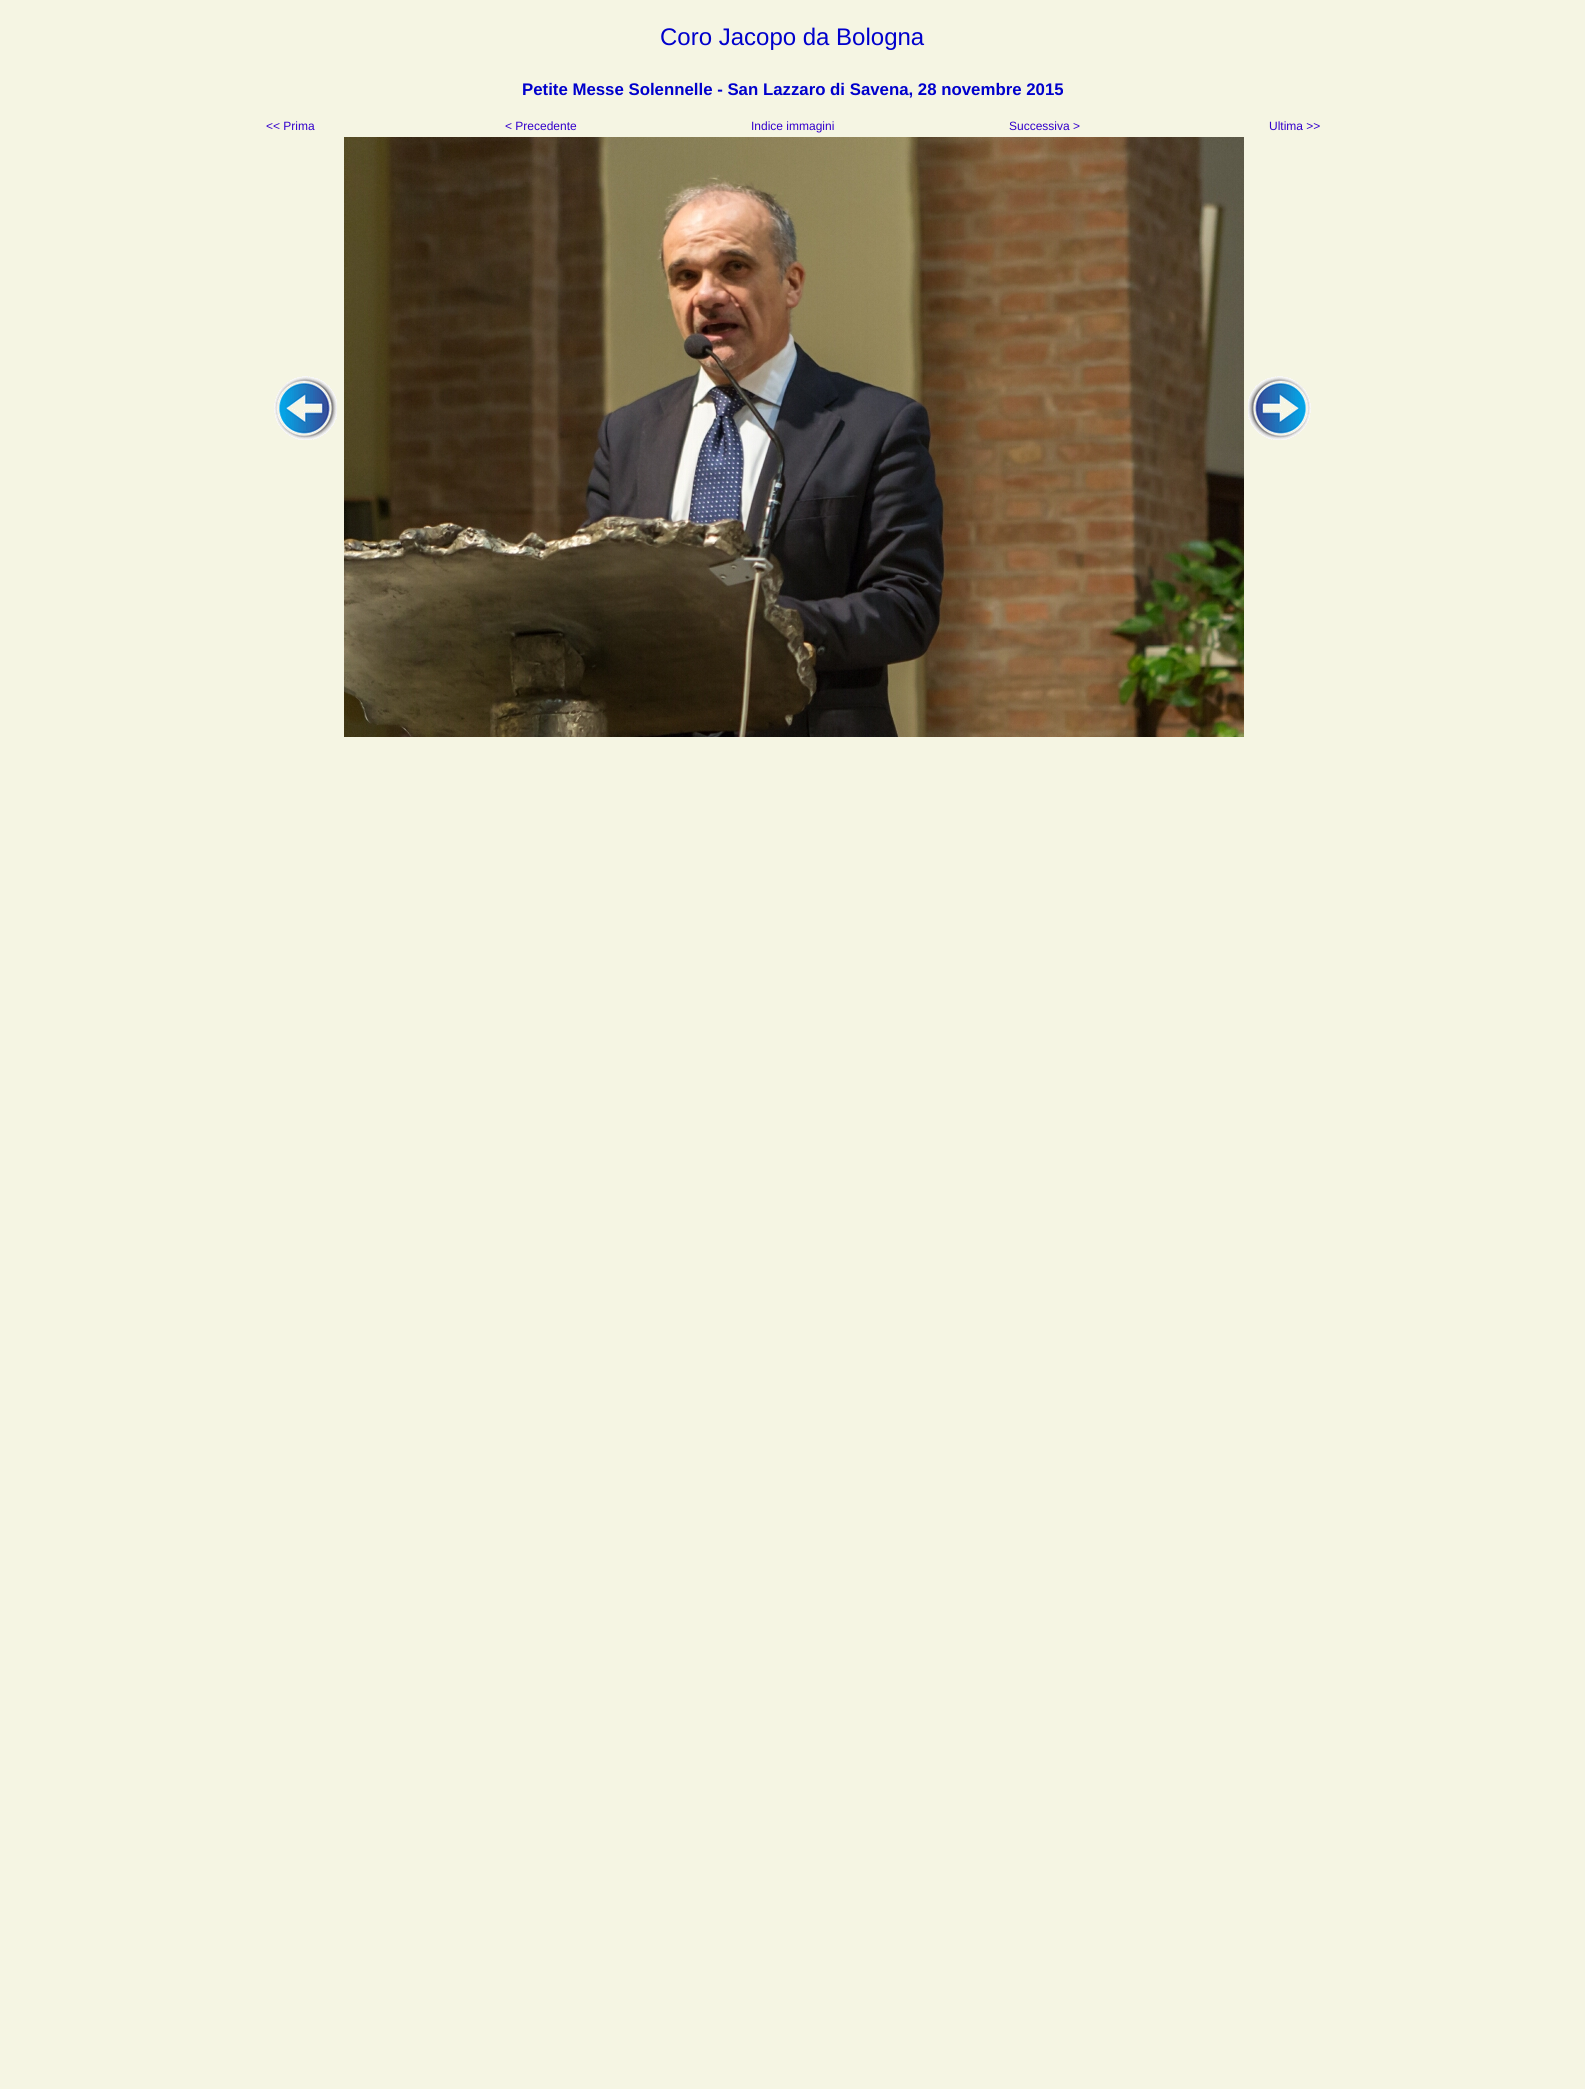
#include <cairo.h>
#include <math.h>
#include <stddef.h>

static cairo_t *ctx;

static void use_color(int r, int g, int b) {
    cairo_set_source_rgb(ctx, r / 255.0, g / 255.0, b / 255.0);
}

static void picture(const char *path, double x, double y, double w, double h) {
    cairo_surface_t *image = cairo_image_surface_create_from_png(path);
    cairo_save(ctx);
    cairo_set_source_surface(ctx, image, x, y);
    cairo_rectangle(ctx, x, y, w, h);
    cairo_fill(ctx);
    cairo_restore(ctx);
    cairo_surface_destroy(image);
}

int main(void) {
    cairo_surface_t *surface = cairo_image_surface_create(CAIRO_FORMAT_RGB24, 1585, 2089);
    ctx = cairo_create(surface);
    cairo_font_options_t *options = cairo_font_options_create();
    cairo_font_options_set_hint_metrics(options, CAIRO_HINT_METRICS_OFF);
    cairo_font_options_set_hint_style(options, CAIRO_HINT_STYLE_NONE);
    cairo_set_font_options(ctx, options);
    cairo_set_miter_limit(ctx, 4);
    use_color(245, 245, 227);
    cairo_paint(ctx);
    cairo_select_font_face(ctx, "Liberation Sans", CAIRO_FONT_SLANT_NORMAL, CAIRO_FONT_WEIGHT_NORMAL);
    cairo_set_font_size(ctx, 24);
    use_color(0, 0, 204);
    cairo_move_to(ctx, 660, 45);
    cairo_show_text(ctx, "Coro Jacopo da Bologna");
    cairo_select_font_face(ctx, "Liberation Sans", CAIRO_FONT_SLANT_NORMAL, CAIRO_FONT_WEIGHT_BOLD);
    cairo_set_font_size(ctx, 16.8);
    cairo_move_to(ctx, 522, 95);
    cairo_show_text(ctx, "Petite Messe Solennelle - San Lazzaro di Savena, 28 novembre 2015");
    cairo_select_font_face(ctx, "Liberation Sans", CAIRO_FONT_SLANT_NORMAL, CAIRO_FONT_WEIGHT_NORMAL);
    cairo_set_font_size(ctx, 12);
    use_color(51, 0, 204);
    cairo_move_to(ctx, 266, 130);
    cairo_show_text(ctx, "<< Prima");
    cairo_move_to(ctx, 505, 130);
    cairo_show_text(ctx, "< Precedente");
    cairo_move_to(ctx, 751, 130);
    cairo_show_text(ctx, "Indice immagini");
    cairo_move_to(ctx, 1009, 130);
    cairo_show_text(ctx, "Successiva >");
    cairo_move_to(ctx, 1269, 130);
    cairo_show_text(ctx, "Ultima >>");
    picture("img1.png", 274, 376, 63, 64);
    picture("img2.png", 344, 137, 900, 600);
    picture("img3.png", 1248, 376, 63, 64);
    cairo_surface_write_to_png(surface, "result.png");
    cairo_font_options_destroy(options);
    cairo_destroy(ctx);
    cairo_surface_destroy(surface);
    return 0;
}
